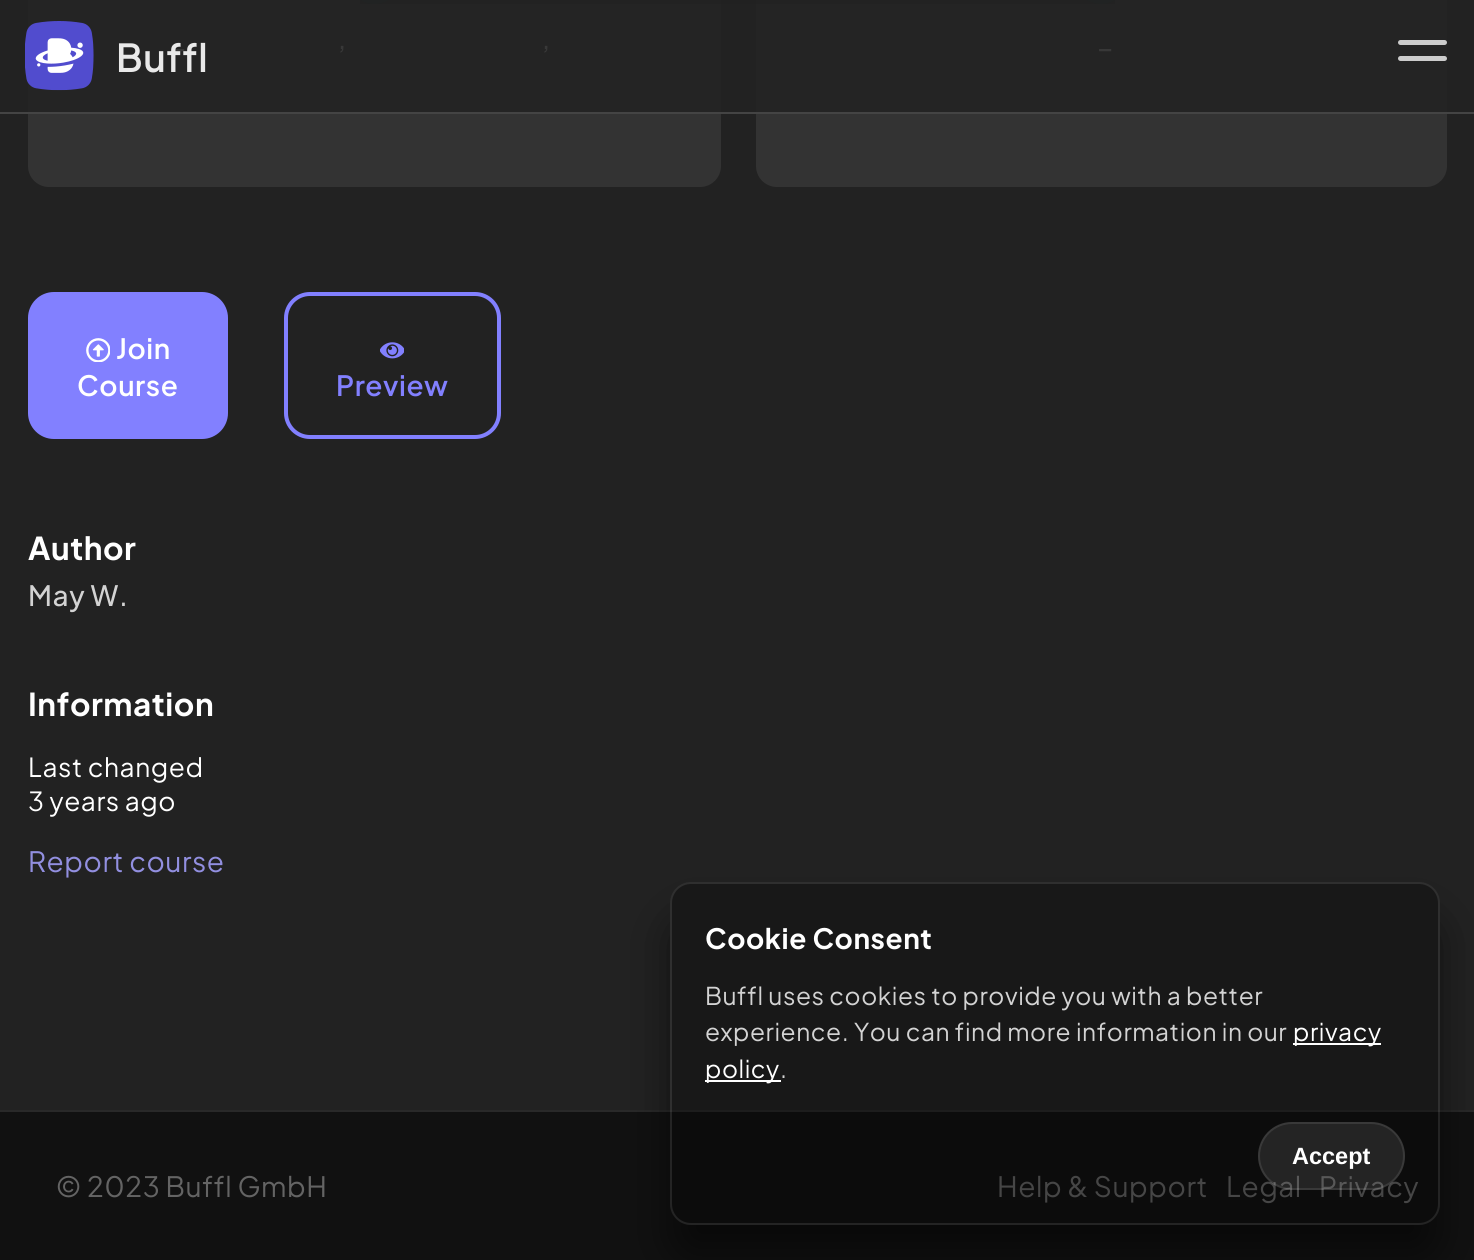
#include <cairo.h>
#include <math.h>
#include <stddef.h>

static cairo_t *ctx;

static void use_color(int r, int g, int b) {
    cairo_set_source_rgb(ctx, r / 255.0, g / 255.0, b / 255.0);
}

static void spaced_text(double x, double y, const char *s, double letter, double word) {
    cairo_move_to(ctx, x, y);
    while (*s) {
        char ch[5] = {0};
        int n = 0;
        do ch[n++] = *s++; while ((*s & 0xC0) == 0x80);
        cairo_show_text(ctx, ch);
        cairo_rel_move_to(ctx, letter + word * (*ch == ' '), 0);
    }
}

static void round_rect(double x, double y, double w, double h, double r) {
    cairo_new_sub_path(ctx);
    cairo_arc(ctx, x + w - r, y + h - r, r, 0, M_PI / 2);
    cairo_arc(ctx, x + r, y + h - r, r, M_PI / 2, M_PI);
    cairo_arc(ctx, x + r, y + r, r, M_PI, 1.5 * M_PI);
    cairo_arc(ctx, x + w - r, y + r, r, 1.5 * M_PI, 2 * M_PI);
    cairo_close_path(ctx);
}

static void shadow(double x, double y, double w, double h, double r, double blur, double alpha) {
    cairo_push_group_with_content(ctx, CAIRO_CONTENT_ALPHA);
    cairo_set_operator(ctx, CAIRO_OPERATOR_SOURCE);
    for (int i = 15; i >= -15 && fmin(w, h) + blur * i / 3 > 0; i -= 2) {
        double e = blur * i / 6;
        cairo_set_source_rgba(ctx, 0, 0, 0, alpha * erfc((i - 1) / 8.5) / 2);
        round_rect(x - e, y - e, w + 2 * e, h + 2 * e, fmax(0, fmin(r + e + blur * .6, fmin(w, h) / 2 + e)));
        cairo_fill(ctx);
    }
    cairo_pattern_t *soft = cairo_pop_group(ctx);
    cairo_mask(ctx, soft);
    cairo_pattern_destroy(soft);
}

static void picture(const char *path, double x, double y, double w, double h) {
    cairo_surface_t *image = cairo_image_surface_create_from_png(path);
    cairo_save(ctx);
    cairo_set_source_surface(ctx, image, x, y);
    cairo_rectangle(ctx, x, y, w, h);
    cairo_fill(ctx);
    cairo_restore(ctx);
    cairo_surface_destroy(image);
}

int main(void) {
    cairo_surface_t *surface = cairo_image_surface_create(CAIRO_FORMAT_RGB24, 1474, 1260);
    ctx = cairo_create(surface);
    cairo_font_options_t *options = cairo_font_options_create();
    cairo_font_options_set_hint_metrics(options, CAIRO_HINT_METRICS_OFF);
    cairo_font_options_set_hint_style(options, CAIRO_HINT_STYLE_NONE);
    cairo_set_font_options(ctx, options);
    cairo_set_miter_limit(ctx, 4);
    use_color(34, 34, 34);
    cairo_paint(ctx);
    use_color(51, 51, 51);
    round_rect(28, -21, 693, 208, 21);
    cairo_fill(ctx);
    use_color(36, 36, 36);
    cairo_rectangle(ctx, 28, 0, 693, 112);
    cairo_fill(ctx);
    use_color(31, 53, 47);
    round_rect(348, -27, 53, 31, 26.5);
    cairo_fill(ctx);
    use_color(51, 51, 51);
    round_rect(756, -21, 691, 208, 21);
    cairo_fill(ctx);
    use_color(36, 36, 36);
    cairo_rectangle(ctx, 756, 0, 691, 112);
    cairo_fill(ctx);
    use_color(31, 53, 47);
    round_rect(1075, -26, 52, 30, 26);
    cairo_fill(ctx);
    cairo_set_source_rgba(ctx, 0.133, 0.133, 0.133, 0.9);
    cairo_rectangle(ctx, 360, 0, 755, 4);
    cairo_fill(ctx);
    use_color(68, 68, 68);
    cairo_rectangle(ctx, 0, 112, 1474, 2);
    cairo_fill(ctx);
    picture("img1.png", 25, 21, 69, 70);
    cairo_select_font_face(ctx, "Plus Jakarta Sans Medium", CAIRO_FONT_SLANT_NORMAL, CAIRO_FONT_WEIGHT_NORMAL);
    cairo_set_font_size(ctx, 26.25);
    use_color(56, 56, 56);
    spaced_text(170, 49, "_", 0.55, 0);
    cairo_select_font_face(ctx, "Plus Jakarta Sans SemiBold", CAIRO_FONT_SLANT_NORMAL, CAIRO_FONT_WEIGHT_NORMAL);
    cairo_set_font_size(ctx, 38.5);
    use_color(233, 233, 233);
    spaced_text(116, 72, "Buffl", 0.55, 0);
    use_color(204, 204, 204);
    round_rect(1398, 40, 49, 5, 2.5);
    cairo_fill(ctx);
    round_rect(1398, 56, 49, 5, 2.5);
    cairo_fill(ctx);
    cairo_select_font_face(ctx, "Plus Jakarta Sans Medium", CAIRO_FONT_SLANT_NORMAL, CAIRO_FONT_WEIGHT_NORMAL);
    cairo_set_font_size(ctx, 26.25);
    use_color(56, 56, 56);
    spaced_text(338, 49, ",", 0.55, 0);
    spaced_text(542, 49, ",", 0.55, 0);
    spaced_text(1097, 49, "_", 0.55, 0);
    use_color(130, 128, 255);
    round_rect(28, 292, 200, 147, 26);
    cairo_fill(ctx);
    picture("img2.png", 86, 338, 24, 24);
    cairo_select_font_face(ctx, "Plus Jakarta Sans SemiBold", CAIRO_FONT_SLANT_NORMAL, CAIRO_FONT_WEIGHT_NORMAL);
    cairo_set_font_size(ctx, 28);
    use_color(255, 255, 255);
    spaced_text(116, 359, "Join", 0.55, 0);
    spaced_text(77, 396, "Course", 0.55, 0);
    round_rect(286, 294, 213, 143, 24);
    use_color(130, 128, 255);
    cairo_set_line_width(ctx, 4);
    cairo_stroke(ctx);
    picture("img3.png", 380, 342, 24, 17);
    spaced_text(336, 396, "Preview", 0.55, 0);
    cairo_select_font_face(ctx, "Plus Jakarta Sans", CAIRO_FONT_SLANT_NORMAL, CAIRO_FONT_WEIGHT_BOLD);
    cairo_set_font_size(ctx, 31.5);
    use_color(255, 255, 255);
    spaced_text(28, 560, "Author", 0.55, 0);
    cairo_select_font_face(ctx, "Plus Jakarta Sans Medium", CAIRO_FONT_SLANT_NORMAL, CAIRO_FONT_WEIGHT_NORMAL);
    cairo_set_font_size(ctx, 28);
    use_color(211, 211, 211);
    spaced_text(28, 606, "May W.", 0.55, 0);
    cairo_select_font_face(ctx, "Plus Jakarta Sans", CAIRO_FONT_SLANT_NORMAL, CAIRO_FONT_WEIGHT_BOLD);
    cairo_set_font_size(ctx, 31.5);
    use_color(255, 255, 255);
    spaced_text(28, 716, "Information", 0.55, 0);
    cairo_select_font_face(ctx, "Plus Jakarta Sans", CAIRO_FONT_SLANT_NORMAL, CAIRO_FONT_WEIGHT_NORMAL);
    cairo_set_font_size(ctx, 26.25);
    spaced_text(28, 777, "Last changed", 0.55, 0);
    spaced_text(28, 811, "3 years ago", 0.55, 0);
    cairo_set_font_size(ctx, 28);
    use_color(146, 143, 224);
    spaced_text(28, 872, "Report course", 0.55, 0);
    use_color(17, 17, 17);
    cairo_rectangle(ctx, 0, 1112, 1474, 148);
    cairo_fill(ctx);
    use_color(41, 41, 41);
    cairo_rectangle(ctx, 0, 1110, 1474, 2);
    cairo_fill(ctx);
    cairo_save(ctx);
    cairo_set_fill_rule(ctx, CAIRO_FILL_RULE_EVEN_ODD);
    cairo_new_path(ctx);
    cairo_move_to(ctx, 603, 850);
    cairo_line_to(ctx, 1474, 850);
    cairo_line_to(ctx, 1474, 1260);
    cairo_line_to(ctx, 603, 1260);
    cairo_close_path(ctx);
    cairo_move_to(ctx, 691, 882);
    cairo_line_to(ctx, 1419, 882);
    cairo_curve_to(ctx, 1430.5, 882, 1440, 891.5, 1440, 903);
    cairo_line_to(ctx, 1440, 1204);
    cairo_curve_to(ctx, 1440, 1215.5, 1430.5, 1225, 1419, 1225);
    cairo_line_to(ctx, 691, 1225);
    cairo_curve_to(ctx, 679.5, 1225, 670, 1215.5, 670, 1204);
    cairo_line_to(ctx, 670, 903);
    cairo_curve_to(ctx, 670, 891.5, 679.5, 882, 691, 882);
    cairo_close_path(ctx);
    cairo_clip(ctx);
    use_color(0, 0, 0);
    shadow(670, 917, 770, 343, 21, 22, 0.5);
    cairo_restore(ctx);
    use_color(100, 100, 100);
    spaced_text(997, 1197, "Help & Support", 0.55, 0);
    spaced_text(1226, 1197, "Legal", 0.55, 0);
    spaced_text(1319, 1197, "Privacy", 0.55, 0);
    cairo_set_source_rgba(ctx, 0, 0, 0, 0.3);
    round_rect(670, 882, 770, 343, 21);
    cairo_fill(ctx);
    round_rect(671, 883, 768, 341, 20);
    cairo_set_source_rgba(ctx, 1, 1, 1, 0.1);
    cairo_set_line_width(ctx, 2);
    cairo_stroke(ctx);
    cairo_select_font_face(ctx, "Plus Jakarta Sans", CAIRO_FONT_SLANT_NORMAL, CAIRO_FONT_WEIGHT_BOLD);
    use_color(255, 255, 255);
    spaced_text(705, 949, "Cookie Consent", 0.55, 0);
    cairo_select_font_face(ctx, "Plus Jakarta Sans", CAIRO_FONT_SLANT_NORMAL, CAIRO_FONT_WEIGHT_NORMAL);
    cairo_set_font_size(ctx, 24.5);
    use_color(211, 211, 211);
    spaced_text(705, 1005, "Buffl uses cookies to provide you with a better", 0.55, 0);
    spaced_text(705, 1041, "experience. You can find more information in our", 0.55, 0);
    use_color(255, 255, 255);
    cairo_rectangle(ctx, 1293, 1043, 88, 2);
    cairo_fill(ctx);
    spaced_text(1293, 1041, "privacy", 0.55, 0);
    cairo_rectangle(ctx, 705, 1080, 76, 2);
    cairo_fill(ctx);
    spaced_text(705, 1078, "policy", 0.55, 0);
    use_color(211, 211, 211);
    spaced_text(780, 1078, ".", 0.55, 0);
    cairo_set_source_rgba(ctx, 1, 1, 1, 0.1);
    round_rect(1258, 1122, 147, 68, 34);
    cairo_fill(ctx);
    round_rect(1259, 1123, 145, 66, 33);
    cairo_stroke(ctx);
    cairo_select_font_face(ctx, "Liberation Sans", CAIRO_FONT_SLANT_NORMAL, CAIRO_FONT_WEIGHT_BOLD);
    cairo_set_font_size(ctx, 23.5);
    use_color(255, 255, 255);
    cairo_move_to(ctx, 1292, 1164);
    cairo_show_text(ctx, "Accept");
    cairo_select_font_face(ctx, "Plus Jakarta Sans", CAIRO_FONT_SLANT_NORMAL, CAIRO_FONT_WEIGHT_NORMAL);
    cairo_set_font_size(ctx, 28);
    use_color(100, 100, 100);
    spaced_text(56, 1197, "© 2023 Buffl GmbH", 0.55, 0);
    cairo_surface_write_to_png(surface, "result.png");
    cairo_font_options_destroy(options);
    cairo_destroy(ctx);
    cairo_surface_destroy(surface);
    return 0;
}
